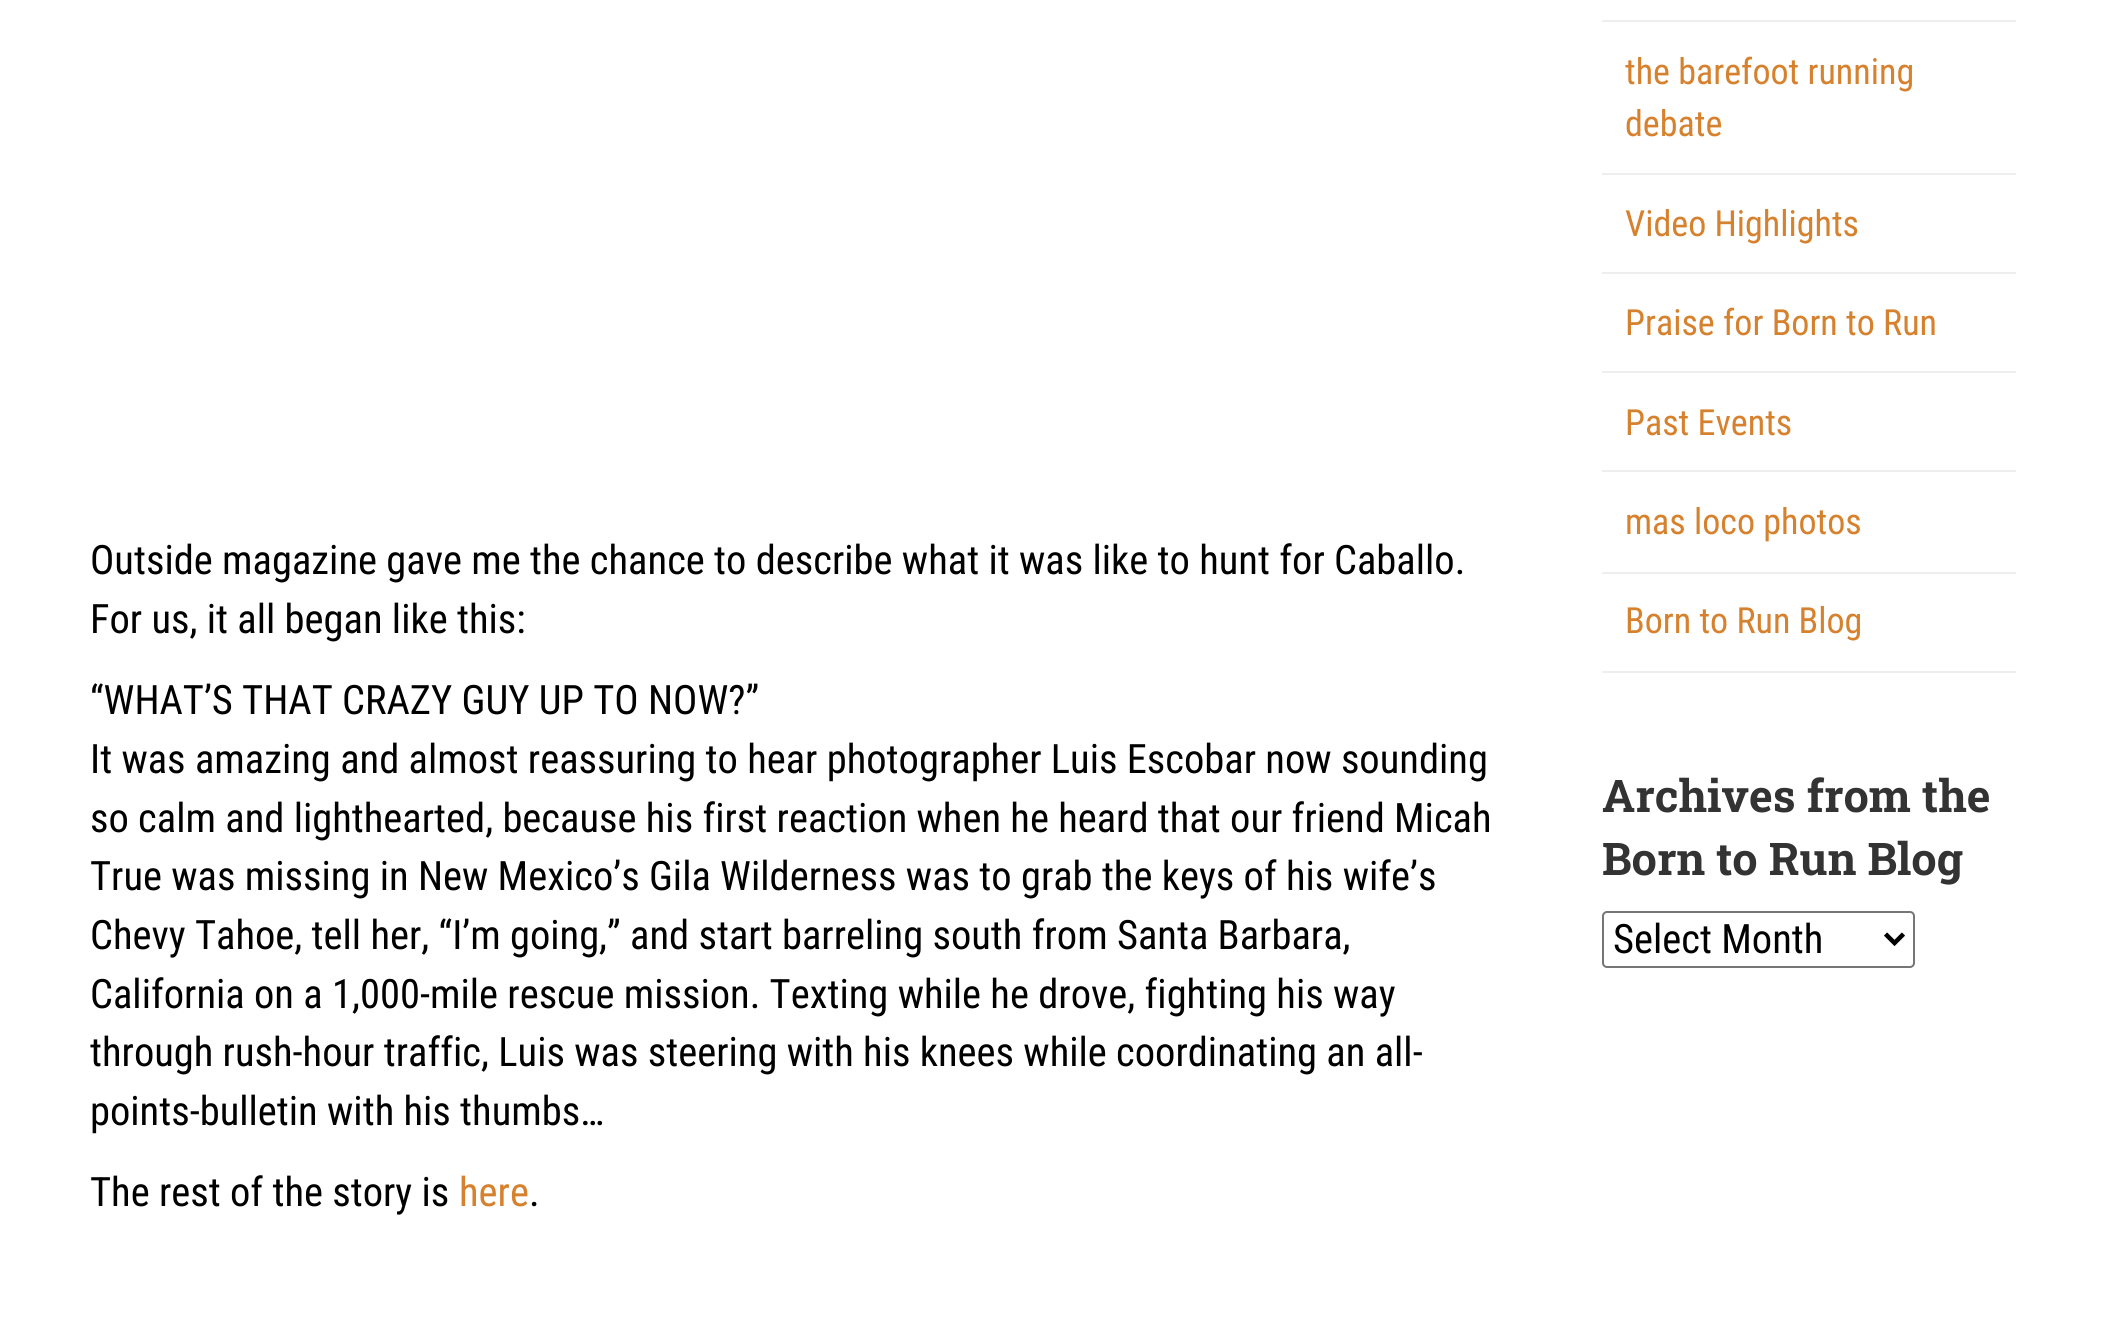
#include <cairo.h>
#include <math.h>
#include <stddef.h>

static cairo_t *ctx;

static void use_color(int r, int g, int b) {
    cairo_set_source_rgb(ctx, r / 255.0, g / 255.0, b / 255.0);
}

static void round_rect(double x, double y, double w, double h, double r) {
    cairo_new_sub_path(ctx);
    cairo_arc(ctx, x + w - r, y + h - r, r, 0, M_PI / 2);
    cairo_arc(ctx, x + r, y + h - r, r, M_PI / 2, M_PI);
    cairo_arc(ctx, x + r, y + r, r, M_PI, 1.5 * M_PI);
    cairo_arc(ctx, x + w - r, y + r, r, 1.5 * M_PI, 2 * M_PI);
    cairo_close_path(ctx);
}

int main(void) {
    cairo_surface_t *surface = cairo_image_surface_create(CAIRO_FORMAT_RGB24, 2106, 1333);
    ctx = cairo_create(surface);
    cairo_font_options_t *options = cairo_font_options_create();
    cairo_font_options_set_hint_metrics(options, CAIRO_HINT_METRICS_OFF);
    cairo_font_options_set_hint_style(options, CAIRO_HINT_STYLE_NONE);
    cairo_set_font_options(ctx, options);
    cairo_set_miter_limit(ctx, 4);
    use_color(255, 255, 255);
    cairo_paint(ctx);
    cairo_select_font_face(ctx, "Roboto Condensed", CAIRO_FONT_SLANT_NORMAL, CAIRO_FONT_WEIGHT_NORMAL);
    cairo_set_font_size(ctx, 40.5);
    use_color(0, 0, 0);
    cairo_move_to(ctx, 90, 574);
    cairo_show_text(ctx, "Outside magazine gave me the chance to describe what it was like to hunt for Caballo.");
    cairo_move_to(ctx, 90, 633);
    cairo_show_text(ctx, "For us, it all began like this:");
    cairo_move_to(ctx, 90, 714);
    cairo_show_text(ctx, "“WHAT’S THAT CRAZY GUY UP TO NOW?”");
    cairo_move_to(ctx, 90, 773);
    cairo_show_text(ctx, "It was amazing and almost reassuring to hear photographer Luis Escobar now sounding");
    cairo_move_to(ctx, 90, 832);
    cairo_show_text(ctx, "so calm and lighthearted, because his first reaction when he heard that our friend Micah");
    cairo_move_to(ctx, 90, 890);
    cairo_show_text(ctx, "True was missing in New Mexico’s Gila Wilderness was to grab the keys of his wife’s");
    cairo_move_to(ctx, 90, 949);
    cairo_show_text(ctx, "Chevy Tahoe, tell her, “I’m going,” and start barreling south from Santa Barbara,");
    cairo_move_to(ctx, 90, 1008);
    cairo_show_text(ctx, "California on a 1,000-mile rescue mission. Texting while he drove, fighting his way");
    cairo_move_to(ctx, 90, 1066);
    cairo_show_text(ctx, "through rush-hour traffic, Luis was steering with his knees while coordinating an all-");
    cairo_move_to(ctx, 90, 1125);
    cairo_show_text(ctx, "points-bulletin with his thumbs…");
    cairo_move_to(ctx, 90, 1206);
    cairo_show_text(ctx, "The rest of the story is");
    use_color(214, 129, 45);
    cairo_move_to(ctx, 459, 1206);
    cairo_show_text(ctx, "here");
    use_color(0, 0, 0);
    cairo_move_to(ctx, 529, 1206);
    cairo_show_text(ctx, ".");
    use_color(238, 238, 238);
    cairo_rectangle(ctx, 1602, 20, 414, 2);
    cairo_fill(ctx);
    cairo_rectangle(ctx, 1602, 173, 414, 2);
    cairo_fill(ctx);
    cairo_set_font_size(ctx, 36);
    use_color(214, 129, 45);
    cairo_move_to(ctx, 1625, 84);
    cairo_show_text(ctx, "the barefoot running");
    cairo_move_to(ctx, 1625, 136);
    cairo_show_text(ctx, "debate");
    use_color(238, 238, 238);
    cairo_rectangle(ctx, 1602, 272, 414, 2);
    cairo_fill(ctx);
    use_color(214, 129, 45);
    cairo_move_to(ctx, 1625, 236);
    cairo_show_text(ctx, "Video Highlights");
    use_color(238, 238, 238);
    cairo_rectangle(ctx, 1602, 371, 414, 2);
    cairo_fill(ctx);
    use_color(214, 129, 45);
    cairo_move_to(ctx, 1625, 335);
    cairo_show_text(ctx, "Praise for Born to Run");
    use_color(238, 238, 238);
    cairo_rectangle(ctx, 1602, 470, 414, 2);
    cairo_fill(ctx);
    use_color(214, 129, 45);
    cairo_move_to(ctx, 1625, 435);
    cairo_show_text(ctx, "Past Events");
    use_color(238, 238, 238);
    cairo_rectangle(ctx, 1602, 572, 414, 2);
    cairo_fill(ctx);
    use_color(214, 129, 45);
    cairo_move_to(ctx, 1625, 534);
    cairo_show_text(ctx, "mas loco photos");
    use_color(238, 238, 238);
    cairo_rectangle(ctx, 1602, 671, 414, 2);
    cairo_fill(ctx);
    use_color(214, 129, 45);
    cairo_move_to(ctx, 1625, 633);
    cairo_show_text(ctx, "Born to Run Blog");
    cairo_select_font_face(ctx, "Roboto Slab", CAIRO_FONT_SLANT_NORMAL, CAIRO_FONT_WEIGHT_BOLD);
    cairo_set_font_size(ctx, 45);
    use_color(51, 51, 51);
    cairo_move_to(ctx, 1602, 812);
    cairo_show_text(ctx, "Archives from the");
    cairo_move_to(ctx, 1602, 875);
    cairo_show_text(ctx, "Born to Run Blog");
    round_rect(1603, 912, 311, 55, 4);
    use_color(118, 118, 118);
    cairo_stroke(ctx);
    cairo_new_path(ctx);
    cairo_move_to(ctx, 1885.5, 934);
    cairo_line_to(ctx, 1894.5, 943);
    cairo_line_to(ctx, 1903.5, 934);
    use_color(0, 0, 0);
    cairo_set_line_width(ctx, 4.5);
    cairo_stroke(ctx);
    cairo_select_font_face(ctx, "Roboto Condensed", CAIRO_FONT_SLANT_NORMAL, CAIRO_FONT_WEIGHT_NORMAL);
    cairo_set_font_size(ctx, 40.5);
    cairo_move_to(ctx, 1613, 953);
    cairo_show_text(ctx, "Select Month");
    cairo_surface_write_to_png(surface, "result.png");
    cairo_font_options_destroy(options);
    cairo_destroy(ctx);
    cairo_surface_destroy(surface);
    return 0;
}
